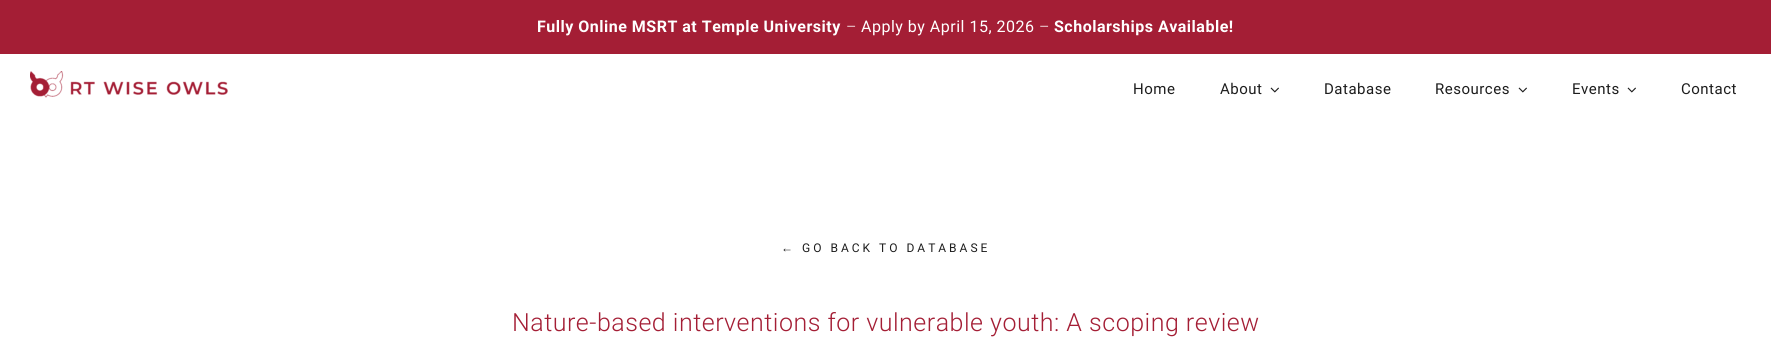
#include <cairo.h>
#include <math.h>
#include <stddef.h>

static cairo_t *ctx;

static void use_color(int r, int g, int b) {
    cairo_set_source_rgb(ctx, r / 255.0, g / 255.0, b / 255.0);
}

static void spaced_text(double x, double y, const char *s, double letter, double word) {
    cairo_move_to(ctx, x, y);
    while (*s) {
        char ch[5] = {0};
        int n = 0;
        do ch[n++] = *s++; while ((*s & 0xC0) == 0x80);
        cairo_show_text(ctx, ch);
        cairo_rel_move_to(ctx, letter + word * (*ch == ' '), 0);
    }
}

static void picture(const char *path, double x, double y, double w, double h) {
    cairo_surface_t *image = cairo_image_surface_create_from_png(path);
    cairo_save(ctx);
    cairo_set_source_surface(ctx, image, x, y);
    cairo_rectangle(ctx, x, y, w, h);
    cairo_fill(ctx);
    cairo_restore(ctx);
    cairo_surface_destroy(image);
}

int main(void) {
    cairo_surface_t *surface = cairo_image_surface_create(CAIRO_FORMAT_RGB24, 1771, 363);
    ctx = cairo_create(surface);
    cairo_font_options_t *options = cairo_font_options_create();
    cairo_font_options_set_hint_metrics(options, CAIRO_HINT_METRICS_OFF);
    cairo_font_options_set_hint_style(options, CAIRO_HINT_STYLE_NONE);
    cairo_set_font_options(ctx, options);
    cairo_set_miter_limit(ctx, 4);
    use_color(255, 255, 255);
    cairo_paint(ctx);
    use_color(164, 30, 53);
    cairo_rectangle(ctx, 0, 0, 1771, 54);
    cairo_fill(ctx);
    cairo_select_font_face(ctx, "Roboto", CAIRO_FONT_SLANT_NORMAL, CAIRO_FONT_WEIGHT_BOLD);
    cairo_set_font_size(ctx, 16);
    use_color(255, 255, 255);
    spaced_text(537, 32, "Fully Online MSRT at Temple University", 0.5, 0);
    cairo_select_font_face(ctx, "Roboto Light", CAIRO_FONT_SLANT_NORMAL, CAIRO_FONT_WEIGHT_NORMAL);
    spaced_text(846, 32, "–", 0.5, 0);
    cairo_select_font_face(ctx, "Roboto", CAIRO_FONT_SLANT_NORMAL, CAIRO_FONT_WEIGHT_NORMAL);
    spaced_text(861, 32, "Apply by April 15, 2026", 0.5, 0);
    cairo_select_font_face(ctx, "Roboto Light", CAIRO_FONT_SLANT_NORMAL, CAIRO_FONT_WEIGHT_NORMAL);
    spaced_text(1039, 32, "–", 0.5, 0);
    cairo_select_font_face(ctx, "Roboto", CAIRO_FONT_SLANT_NORMAL, CAIRO_FONT_WEIGHT_BOLD);
    spaced_text(1054, 32, "Scholarships Available!", 0.5, 0);
    picture("img1.png", 30, 71, 198, 27);
    cairo_select_font_face(ctx, "Roboto", CAIRO_FONT_SLANT_NORMAL, CAIRO_FONT_WEIGHT_NORMAL);
    cairo_set_font_size(ctx, 15);
    use_color(29, 29, 29);
    spaced_text(1133, 94, "Home", 0.5, 0);
    spaced_text(1220, 94, "About", 0.5, 0);
    picture("img2.png", 1270, 87, 9, 6);
    spaced_text(1324, 94, "Database", 0.5, 0);
    spaced_text(1435, 94, "Resources", 0.5, 0);
    picture("img2.png", 1518, 87, 9, 6);
    spaced_text(1572, 94, "Events", 0.5, 0);
    picture("img2.png", 1627, 87, 9, 6);
    spaced_text(1681, 94, "Contact", 0.5, 0);
    cairo_select_font_face(ctx, "Liberation Sans", CAIRO_FONT_SLANT_NORMAL, CAIRO_FONT_WEIGHT_NORMAL);
    cairo_set_font_size(ctx, 12);
    spaced_text(781, 252, "←", 3, 0);
    cairo_select_font_face(ctx, "Roboto", CAIRO_FONT_SLANT_NORMAL, CAIRO_FONT_WEIGHT_NORMAL);
    spaced_text(802, 252, "GO BACK TO DATABASE", 3, 0);
    cairo_select_font_face(ctx, "Roboto Light", CAIRO_FONT_SLANT_NORMAL, CAIRO_FONT_WEIGHT_NORMAL);
    cairo_set_font_size(ctx, 25);
    use_color(164, 30, 53);
    spaced_text(512, 331, "Nature-based interventions for vulnerable youth: A scoping review", 0.5, 0);
    cairo_surface_write_to_png(surface, "result.png");
    cairo_font_options_destroy(options);
    cairo_destroy(ctx);
    cairo_surface_destroy(surface);
    return 0;
}
